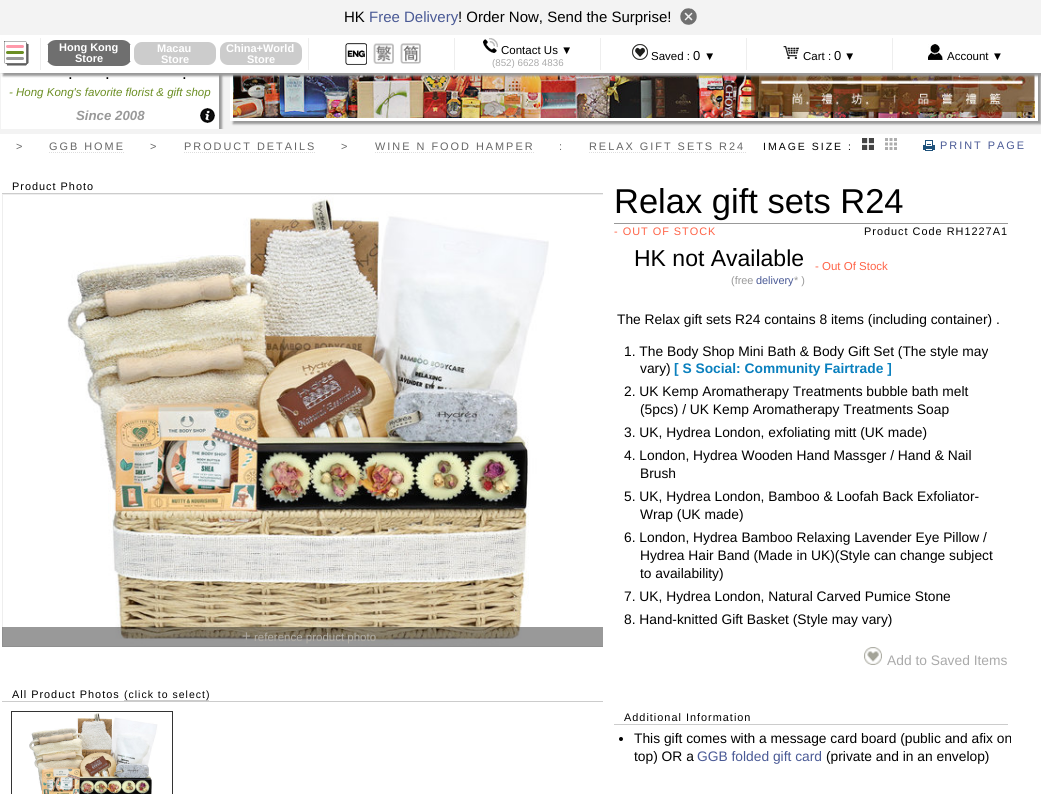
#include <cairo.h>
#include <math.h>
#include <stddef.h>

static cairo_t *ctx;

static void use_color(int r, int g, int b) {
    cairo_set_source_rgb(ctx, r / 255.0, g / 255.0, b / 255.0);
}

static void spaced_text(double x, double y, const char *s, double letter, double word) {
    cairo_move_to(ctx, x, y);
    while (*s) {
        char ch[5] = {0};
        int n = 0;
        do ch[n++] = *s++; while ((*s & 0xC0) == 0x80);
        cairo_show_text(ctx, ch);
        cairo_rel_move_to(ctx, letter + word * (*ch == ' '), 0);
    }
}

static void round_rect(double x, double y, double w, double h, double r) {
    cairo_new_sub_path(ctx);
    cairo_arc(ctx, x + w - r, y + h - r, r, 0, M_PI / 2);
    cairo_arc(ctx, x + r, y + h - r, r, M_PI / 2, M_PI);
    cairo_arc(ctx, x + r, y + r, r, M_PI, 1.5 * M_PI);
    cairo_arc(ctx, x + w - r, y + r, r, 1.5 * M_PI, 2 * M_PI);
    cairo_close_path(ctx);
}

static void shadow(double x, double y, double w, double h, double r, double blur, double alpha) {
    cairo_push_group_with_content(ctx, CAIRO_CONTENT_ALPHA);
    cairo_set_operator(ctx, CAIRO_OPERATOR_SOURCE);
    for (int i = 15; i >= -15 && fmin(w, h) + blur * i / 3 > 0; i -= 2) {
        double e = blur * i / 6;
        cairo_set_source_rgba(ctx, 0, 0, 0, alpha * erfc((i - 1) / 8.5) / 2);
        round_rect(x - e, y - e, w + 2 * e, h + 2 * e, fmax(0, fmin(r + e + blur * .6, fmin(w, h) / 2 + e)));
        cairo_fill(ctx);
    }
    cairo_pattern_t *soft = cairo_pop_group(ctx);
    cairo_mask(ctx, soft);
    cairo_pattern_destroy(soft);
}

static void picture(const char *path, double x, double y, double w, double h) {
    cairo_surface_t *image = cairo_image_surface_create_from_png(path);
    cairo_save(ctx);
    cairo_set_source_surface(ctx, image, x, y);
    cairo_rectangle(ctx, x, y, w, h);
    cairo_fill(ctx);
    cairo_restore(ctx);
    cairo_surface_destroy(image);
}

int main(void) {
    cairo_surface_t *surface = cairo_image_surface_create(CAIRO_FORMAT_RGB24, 1041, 794);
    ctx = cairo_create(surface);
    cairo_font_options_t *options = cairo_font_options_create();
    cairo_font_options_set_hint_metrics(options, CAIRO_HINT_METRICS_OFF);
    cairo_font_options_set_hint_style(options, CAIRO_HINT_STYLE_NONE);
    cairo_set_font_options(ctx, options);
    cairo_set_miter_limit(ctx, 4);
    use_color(255, 255, 255);
    cairo_paint(ctx);
    use_color(243, 243, 243);
    cairo_rectangle(ctx, 0, 74, 1041, 60);
    cairo_fill(ctx);
    cairo_save(ctx);
    cairo_rectangle(ctx, 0, 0, 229, 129);
    cairo_clip(ctx);
    use_color(153, 153, 153);
    shadow(4, -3, 218, 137, 0, 1, 1);
    cairo_restore(ctx);
    use_color(153, 153, 153);
    shadow(233, -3, 808, 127, 0, 1, 1);
    cairo_rectangle(ctx, 231.5, -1.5, 805, 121);
    use_color(255, 255, 255);
    cairo_set_line_width(ctx, 3);
    cairo_stroke(ctx);
    cairo_rectangle(ctx, 3, 38, 1032, 32);
    cairo_fill(ctx);
    use_color(243, 243, 243);
    cairo_rectangle(ctx, 0, 0, 1041, 35);
    cairo_fill(ctx);
    use_color(238, 238, 238);
    cairo_rectangle(ctx, 0, 73, 1041, 1);
    cairo_fill(ctx);
    use_color(255, 255, 255);
    cairo_rectangle(ctx, 1, 74, 218, 55);
    cairo_fill(ctx);
    picture("img11.png", 233, 74, 802, 44);
    cairo_save(ctx);
    cairo_rectangle(ctx, 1, 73, 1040, 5);
    cairo_clip(ctx);
    use_color(153, 153, 153);
    shadow(3, 38, 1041, 38, 0, 1, 1);
    cairo_restore(ctx);
    picture("img1.png", 4, 41, 25, 25);
    cairo_rectangle(ctx, 8, 46, 15, 13);
    cairo_fill(ctx);
    use_color(255, 153, 170);
    round_rect(6, 45, 18, 3, 1.5);
    cairo_fill(ctx);
    use_color(107, 142, 35);
    round_rect(6, 51, 18, 3, 1.5);
    cairo_fill(ctx);
    use_color(153, 153, 153);
    round_rect(6, 57, 18, 3, 1.5);
    cairo_fill(ctx);
    cairo_select_font_face(ctx, "Liberation Sans", CAIRO_FONT_SLANT_NORMAL, CAIRO_FONT_WEIGHT_NORMAL);
    cairo_set_font_size(ctx, 15);
    use_color(0, 0, 0);
    cairo_move_to(ctx, 344, 22);
    cairo_show_text(ctx, "HK");
    use_color(73, 89, 149);
    cairo_move_to(ctx, 369, 22);
    cairo_show_text(ctx, "Free Delivery");
    use_color(0, 0, 0);
    cairo_move_to(ctx, 458, 22);
    cairo_show_text(ctx, "! Order Now, Send the Surprise!");
    picture("img2.png", 680, 8, 17, 17);
    use_color(238, 238, 238);
    cairo_rectangle(ctx, 40, 36, 1, 36);
    cairo_fill(ctx);
    cairo_rectangle(ctx, 308, 36, 1, 36);
    cairo_fill(ctx);
    cairo_rectangle(ctx, 454, 36, 1, 36);
    cairo_fill(ctx);
    cairo_rectangle(ctx, 600, 36, 1, 36);
    cairo_fill(ctx);
    cairo_rectangle(ctx, 746, 36, 1, 36);
    cairo_fill(ctx);
    cairo_rectangle(ctx, 892, 36, 1, 36);
    cairo_fill(ctx);
    use_color(255, 255, 255);
    cairo_rectangle(ctx, 0, 35, 1041, 3);
    cairo_fill(ctx);
    cairo_rectangle(ctx, 1038, 35, 3, 38);
    cairo_fill(ctx);
    cairo_rectangle(ctx, 0, 70, 1041, 3);
    cairo_fill(ctx);
    cairo_rectangle(ctx, 2, 35, 1, 38);
    cairo_fill(ctx);
    use_color(111, 111, 111);
    round_rect(46, 40, 86, 26, 10);
    cairo_fill(ctx);
    use_color(255, 255, 255);
    cairo_rectangle(ctx, 130, 45, 2, 16);
    cairo_fill(ctx);
    cairo_rectangle(ctx, 46, 45, 2, 16);
    cairo_fill(ctx);
    cairo_select_font_face(ctx, "Liberation Sans", CAIRO_FONT_SLANT_NORMAL, CAIRO_FONT_WEIGHT_BOLD);
    cairo_set_font_size(ctx, 11);
    cairo_move_to(ctx, 59, 51);
    cairo_show_text(ctx, "Hong Kong");
    cairo_move_to(ctx, 75, 62);
    cairo_show_text(ctx, "Store");
    use_color(204, 204, 204);
    round_rect(133, 41, 84, 25, 9);
    cairo_fill_preserve(ctx);
    use_color(255, 255, 255);
    cairo_set_line_width(ctx, 2);
    cairo_stroke(ctx);
    cairo_move_to(ctx, 157, 52);
    cairo_show_text(ctx, "Macau");
    cairo_move_to(ctx, 161, 63);
    cairo_show_text(ctx, "Store");
    use_color(204, 204, 204);
    round_rect(219, 41, 84, 25, 9);
    cairo_fill_preserve(ctx);
    use_color(255, 255, 255);
    cairo_stroke(ctx);
    cairo_move_to(ctx, 226, 52);
    cairo_show_text(ctx, "China+World");
    cairo_move_to(ctx, 247, 63);
    cairo_show_text(ctx, "Store");
    picture("img3.png", 345, 43, 22, 22);
    picture("img4.png", 373, 43, 21, 21);
    picture("img5.png", 400, 43, 21, 21);
    picture("img6.png", 483, 38, 15, 15);
    cairo_select_font_face(ctx, "Liberation Sans", CAIRO_FONT_SLANT_NORMAL, CAIRO_FONT_WEIGHT_NORMAL);
    cairo_set_font_size(ctx, 11.5);
    use_color(0, 0, 0);
    cairo_move_to(ctx, 501, 54);
    cairo_show_text(ctx, "Contact Us ▼");
    cairo_set_font_size(ctx, 9.75);
    use_color(170, 170, 170);
    cairo_move_to(ctx, 492, 66);
    cairo_show_text(ctx, "(852) 6628 4836");
    picture("img7.png", 632, 44, 16, 16);
    cairo_set_font_size(ctx, 11.5);
    use_color(0, 0, 0);
    cairo_move_to(ctx, 651, 60);
    cairo_show_text(ctx, "Saved :");
    cairo_set_font_size(ctx, 13);
    cairo_move_to(ctx, 693, 60);
    cairo_show_text(ctx, "0");
    cairo_set_font_size(ctx, 11.5);
    cairo_move_to(ctx, 704, 60);
    cairo_show_text(ctx, "▼");
    picture("img8.png", 783, 46, 16, 13);
    cairo_move_to(ctx, 803, 60);
    cairo_show_text(ctx, "Cart :");
    cairo_set_font_size(ctx, 13);
    cairo_move_to(ctx, 834, 60);
    cairo_show_text(ctx, "0");
    cairo_set_font_size(ctx, 11.5);
    cairo_move_to(ctx, 844, 60);
    cairo_show_text(ctx, "▼");
    picture("img9.png", 928, 44, 15, 16);
    cairo_move_to(ctx, 947, 60);
    cairo_show_text(ctx, "Account ▼");
    cairo_set_font_size(ctx, 17);
    cairo_move_to(ctx, 68, 79);
    cairo_show_text(ctx, ".");
    cairo_move_to(ctx, 105, 79);
    cairo_show_text(ctx, ".");
    cairo_move_to(ctx, 182, 79);
    cairo_show_text(ctx, ".");
    cairo_select_font_face(ctx, "Liberation Sans", CAIRO_FONT_SLANT_ITALIC, CAIRO_FONT_WEIGHT_NORMAL);
    cairo_set_font_size(ctx, 11.5);
    use_color(107, 142, 35);
    cairo_move_to(ctx, 9, 96);
    cairo_show_text(ctx, "- Hong Kong's favorite florist & gift shop");
    cairo_select_font_face(ctx, "Liberation Sans", CAIRO_FONT_SLANT_ITALIC, CAIRO_FONT_WEIGHT_BOLD);
    cairo_set_font_size(ctx, 13.25);
    use_color(153, 153, 153);
    cairo_move_to(ctx, 76, 120);
    cairo_show_text(ctx, "Since 2008");
    picture("img10.png", 200, 108, 15, 15);
    cairo_select_font_face(ctx, "Liberation Sans", CAIRO_FONT_SLANT_NORMAL, CAIRO_FONT_WEIGHT_NORMAL);
    cairo_set_font_size(ctx, 10.9);
    use_color(102, 102, 102);
    spaced_text(16, 150, ">", 2, 0);
    spaced_text(49, 150, "GGB HOME", 2, 0);
    cairo_new_path(ctx);
    cairo_move_to(ctx, 49, 152.5);
    cairo_line_to(ctx, 125, 152.5);
    use_color(221, 221, 221);
    cairo_set_line_width(ctx, 1);
    cairo_set_dash(ctx, (double[]){1, 1}, 2, 0);
    cairo_stroke(ctx);
    use_color(102, 102, 102);
    spaced_text(150, 150, ">", 2, 0);
    spaced_text(184, 150, "PRODUCT DETAILS", 2, 0);
    cairo_new_path(ctx);
    cairo_move_to(ctx, 184, 152.5);
    cairo_line_to(ctx, 316, 152.5);
    use_color(221, 221, 221);
    cairo_stroke(ctx);
    use_color(102, 102, 102);
    spaced_text(341, 150, ">", 2, 0);
    spaced_text(375, 150, "WINE N FOOD HAMPER", 2, 0);
    cairo_new_path(ctx);
    cairo_move_to(ctx, 375, 152.5);
    cairo_line_to(ctx, 534, 152.5);
    use_color(221, 221, 221);
    cairo_stroke(ctx);
    use_color(102, 102, 102);
    spaced_text(559, 150, ":", 2, 0);
    spaced_text(589, 150, "RELAX GIFT SETS R24", 2, 0);
    cairo_new_path(ctx);
    cairo_move_to(ctx, 589, 152.5);
    cairo_line_to(ctx, 746, 152.5);
    use_color(221, 221, 221);
    cairo_stroke(ctx);
    cairo_set_font_size(ctx, 10.5);
    use_color(0, 0, 0);
    spaced_text(763, 150, "IMAGE SIZE :", 2, 0);
    picture("img12.png", 862, 138, 12, 12);
    picture("img13.png", 885, 138, 12, 12);
    picture("img14.png", 923, 140, 12, 11);
    cairo_set_font_size(ctx, 10.9);
    use_color(73, 89, 149);
    spaced_text(940, 149, "PRINT PAGE", 2, 0);
    use_color(204, 204, 204);
    cairo_rectangle(ctx, 2, 193, 601, 1);
    cairo_fill(ctx);
    use_color(0, 0, 0);
    spaced_text(12, 190, "Product Photo", 1, 0);
    cairo_save(ctx);
    cairo_rectangle(ctx, 2, 194, 601, 453);
    cairo_clip(ctx);
    cairo_rectangle(ctx, 2.5, 194.5, 602, 452);
    use_color(238, 238, 238);
    cairo_set_dash(ctx, NULL, 0, 0);
    cairo_stroke(ctx);
    cairo_restore(ctx);
    picture("img15.png", 67, 195, 482, 451);
    cairo_set_source_rgba(ctx, 0, 0, 0, 0.4);
    cairo_rectangle(ctx, 2, 627, 601, 20);
    cairo_fill(ctx);
    cairo_set_font_size(ctx, 15);
    use_color(173, 168, 159);
    cairo_move_to(ctx, 242, 641);
    cairo_show_text(ctx, "+");
    cairo_set_font_size(ctx, 11.5);
    use_color(179, 175, 167);
    cairo_move_to(ctx, 254, 641);
    cairo_show_text(ctx, "reference product photo");
    use_color(204, 204, 204);
    cairo_rectangle(ctx, 2, 701, 601, 1);
    cairo_fill(ctx);
    cairo_set_font_size(ctx, 10.9);
    use_color(0, 0, 0);
    spaced_text(12, 698, "All Product Photos", 1, 0);
    use_color(204, 204, 204);
    cairo_rectangle(ctx, 124, 700, 85, 1);
    cairo_fill(ctx);
    cairo_set_font_size(ctx, 10.5);
    use_color(0, 0, 0);
    spaced_text(124, 698, "(click to select)", 1, 0);
    cairo_rectangle(ctx, 11.5, 711.5, 161, 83);
    use_color(51, 51, 51);
    cairo_set_dash(ctx, NULL, 0, 0);
    cairo_stroke(ctx);
    picture("img16.png", 29, 713, 129, 81);
    use_color(153, 153, 153);
    cairo_rectangle(ctx, 614, 223, 394, 1);
    cairo_fill(ctx);
    cairo_set_font_size(ctx, 34.5);
    use_color(0, 0, 0);
    cairo_move_to(ctx, 614, 213);
    cairo_show_text(ctx, "Relax gift sets R24");
    cairo_set_font_size(ctx, 10.9);
    use_color(255, 99, 71);
    spaced_text(614, 235, "- OUT OF STOCK", 1, 0);
    use_color(0, 0, 0);
    spaced_text(864, 235, "Product Code RH1227A1", 1, 0);
    cairo_set_font_size(ctx, 23);
    cairo_move_to(ctx, 634, 266);
    cairo_show_text(ctx, "HK not Available");
    cairo_set_font_size(ctx, 10.9);
    use_color(153, 153, 153);
    cairo_move_to(ctx, 731, 284);
    cairo_show_text(ctx, "(free");
    use_color(73, 89, 149);
    cairo_move_to(ctx, 756, 284);
    cairo_show_text(ctx, "delivery");
    use_color(153, 153, 153);
    cairo_move_to(ctx, 794, 284);
    cairo_show_text(ctx, "* )");
    cairo_set_font_size(ctx, 11.5);
    use_color(255, 99, 71);
    cairo_move_to(ctx, 815, 270);
    cairo_show_text(ctx, "- Out Of Stock");
    cairo_set_font_size(ctx, 13.8);
    use_color(0, 0, 0);
    cairo_move_to(ctx, 617, 324);
    cairo_show_text(ctx, "The Relax gift sets R24 contains 8 items (including container) .");
    cairo_move_to(ctx, 624, 356);
    cairo_show_text(ctx, "1. The Body Shop Mini Bath & Body Gift Set (The style may");
    cairo_move_to(ctx, 640, 373);
    cairo_show_text(ctx, "vary)");
    cairo_select_font_face(ctx, "Liberation Sans", CAIRO_FONT_SLANT_NORMAL, CAIRO_FONT_WEIGHT_BOLD);
    use_color(10, 128, 190);
    cairo_move_to(ctx, 674, 373);
    cairo_show_text(ctx, "[ S Social: Community Fairtrade ]");
    cairo_select_font_face(ctx, "Liberation Sans", CAIRO_FONT_SLANT_NORMAL, CAIRO_FONT_WEIGHT_NORMAL);
    use_color(0, 0, 0);
    cairo_move_to(ctx, 624, 396);
    cairo_show_text(ctx, "2. UK Kemp Aromatherapy Treatments bubble bath melt");
    cairo_move_to(ctx, 640, 414);
    cairo_show_text(ctx, "(5pcs) / UK Kemp Aromatherapy Treatments Soap");
    cairo_move_to(ctx, 624, 437);
    cairo_show_text(ctx, "3. UK, Hydrea London, exfoliating mitt (UK made)");
    cairo_move_to(ctx, 624, 460);
    cairo_show_text(ctx, "4. London, Hydrea Wooden Hand Massger / Hand & Nail");
    cairo_move_to(ctx, 640, 478);
    cairo_show_text(ctx, "Brush");
    cairo_move_to(ctx, 624, 501);
    cairo_show_text(ctx, "5. UK, Hydrea London, Bamboo & Loofah Back Exfoliator-");
    cairo_move_to(ctx, 640, 519);
    cairo_show_text(ctx, "Wrap (UK made)");
    cairo_move_to(ctx, 624, 542);
    cairo_show_text(ctx, "6. London, Hydrea Bamboo Relaxing Lavender Eye Pillow /");
    cairo_move_to(ctx, 640, 560);
    cairo_show_text(ctx, "Hydrea Hair Band (Made in UK)(Style can change subject");
    cairo_move_to(ctx, 640, 578);
    cairo_show_text(ctx, "to availability)");
    cairo_move_to(ctx, 624, 601);
    cairo_show_text(ctx, "7. UK, Hydrea London, Natural Carved Pumice Stone");
    cairo_move_to(ctx, 624, 624);
    cairo_show_text(ctx, "8. Hand-knitted Gift Basket (Style may vary)");
    picture("img17.png", 864, 647, 18, 18);
    use_color(170, 170, 170);
    cairo_move_to(ctx, 887, 665);
    cairo_show_text(ctx, "Add to Saved Items");
    use_color(204, 204, 204);
    cairo_rectangle(ctx, 614, 724, 394, 1);
    cairo_fill(ctx);
    cairo_set_font_size(ctx, 10.9);
    use_color(0, 0, 0);
    spaced_text(624, 721, "Additional Information", 1, 0);
    cairo_new_path(ctx);
    cairo_arc(ctx, 621, 739, 2, 0, 2 * M_PI);
    cairo_fill(ctx);
    cairo_set_font_size(ctx, 13.8);
    cairo_move_to(ctx, 634, 743);
    cairo_show_text(ctx, "This gift comes with a message card board (public and afix on");
    cairo_move_to(ctx, 634, 761);
    cairo_show_text(ctx, "top) OR a");
    use_color(73, 89, 149);
    cairo_move_to(ctx, 697, 761);
    cairo_show_text(ctx, "GGB folded gift card");
    use_color(0, 0, 0);
    cairo_move_to(ctx, 826, 761);
    cairo_show_text(ctx, "(private and in an envelop)");
    cairo_surface_write_to_png(surface, "result.png");
    cairo_font_options_destroy(options);
    cairo_destroy(ctx);
    cairo_surface_destroy(surface);
    return 0;
}
